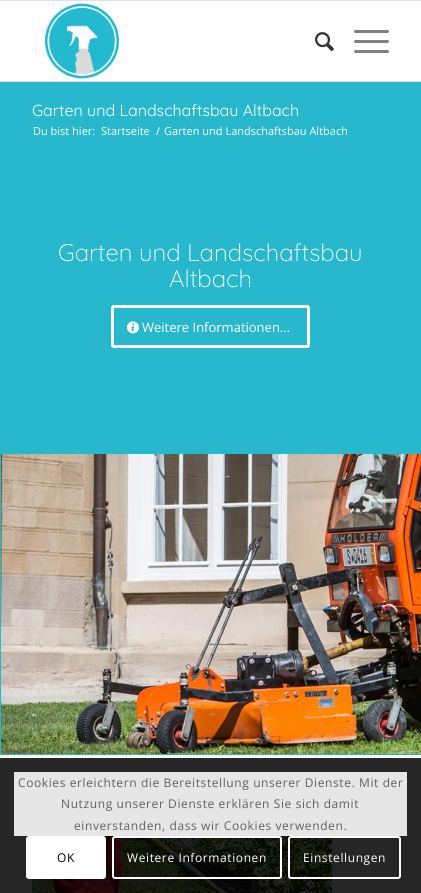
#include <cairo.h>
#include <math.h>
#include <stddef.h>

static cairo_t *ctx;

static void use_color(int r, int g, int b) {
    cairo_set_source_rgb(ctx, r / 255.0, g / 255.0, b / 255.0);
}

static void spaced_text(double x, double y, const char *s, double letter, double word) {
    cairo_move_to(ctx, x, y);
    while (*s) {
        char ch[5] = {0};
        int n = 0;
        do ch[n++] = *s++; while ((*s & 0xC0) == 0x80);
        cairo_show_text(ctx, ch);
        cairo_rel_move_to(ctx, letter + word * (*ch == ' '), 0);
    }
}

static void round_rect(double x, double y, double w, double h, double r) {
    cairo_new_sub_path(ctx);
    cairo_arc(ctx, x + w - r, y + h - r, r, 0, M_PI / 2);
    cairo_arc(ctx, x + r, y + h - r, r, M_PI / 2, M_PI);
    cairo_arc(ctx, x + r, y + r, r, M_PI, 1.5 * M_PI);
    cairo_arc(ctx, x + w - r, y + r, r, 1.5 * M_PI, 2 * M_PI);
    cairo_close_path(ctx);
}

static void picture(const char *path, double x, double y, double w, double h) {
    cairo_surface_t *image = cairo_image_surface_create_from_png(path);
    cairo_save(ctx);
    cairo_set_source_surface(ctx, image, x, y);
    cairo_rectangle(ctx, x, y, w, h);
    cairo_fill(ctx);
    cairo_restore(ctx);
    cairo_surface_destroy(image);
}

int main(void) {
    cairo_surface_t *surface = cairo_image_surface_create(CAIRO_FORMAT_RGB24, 421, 893);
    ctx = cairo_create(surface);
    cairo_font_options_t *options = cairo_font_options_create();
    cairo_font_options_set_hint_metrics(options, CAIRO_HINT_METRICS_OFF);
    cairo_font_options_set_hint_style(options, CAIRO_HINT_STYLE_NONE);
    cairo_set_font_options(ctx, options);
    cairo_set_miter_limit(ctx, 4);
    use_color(255, 255, 255);
    cairo_paint(ctx);
    use_color(225, 225, 225);
    cairo_rectangle(ctx, 0, 0, 421, 1);
    cairo_fill(ctx);
    cairo_rectangle(ctx, 0, 81, 421, 1);
    cairo_fill(ctx);
    picture("img1.png", 45, 3, 74, 76);
    picture("img2.png", 315, 32, 19, 20);
    use_color(128, 128, 128);
    round_rect(354, 40, 35, 3, 1.5);
    cairo_fill(ctx);
    round_rect(354, 30, 35, 3, 1.5);
    cairo_fill(ctx);
    round_rect(354, 50, 35, 3, 1.5);
    cairo_fill(ctx);
    use_color(38, 38, 38);
    cairo_rectangle(ctx, 0, 758, 421, 135);
    cairo_fill(ctx);
    use_color(40, 184, 206);
    cairo_rectangle(ctx, 0, 82, 421, 372);
    cairo_fill(ctx);
    cairo_select_font_face(ctx, "Quicksand", CAIRO_FONT_SLANT_NORMAL, CAIRO_FONT_WEIGHT_NORMAL);
    cairo_set_font_size(ctx, 16);
    use_color(255, 255, 255);
    cairo_move_to(ctx, 32, 116);
    cairo_show_text(ctx, "Garten und Landschaftsbau Altbach");
    cairo_select_font_face(ctx, "Open Sans", CAIRO_FONT_SLANT_NORMAL, CAIRO_FONT_WEIGHT_NORMAL);
    cairo_set_font_size(ctx, 11);
    cairo_move_to(ctx, 33, 135);
    cairo_show_text(ctx, "Du bist hier:");
    cairo_move_to(ctx, 101, 135);
    cairo_show_text(ctx, "Startseite");
    cairo_move_to(ctx, 156, 135);
    cairo_show_text(ctx, "/");
    cairo_move_to(ctx, 164, 135);
    cairo_show_text(ctx, "Garten und Landschaftsbau Altbach");
    cairo_select_font_face(ctx, "Quicksand Light", CAIRO_FONT_SLANT_NORMAL, CAIRO_FONT_WEIGHT_NORMAL);
    cairo_set_font_size(ctx, 24);
    cairo_move_to(ctx, 58, 261);
    cairo_show_text(ctx, "Garten und Landschaftsbau");
    cairo_move_to(ctx, 169, 287);
    cairo_show_text(ctx, "Altbach");
    round_rect(112.5, 306.5, 196, 40, 1.5);
    cairo_set_line_width(ctx, 3);
    cairo_stroke(ctx);
    picture("img3.png", 127, 321, 12, 13);
    cairo_select_font_face(ctx, "Open Sans", CAIRO_FONT_SLANT_NORMAL, CAIRO_FONT_WEIGHT_NORMAL);
    cairo_set_font_size(ctx, 13);
    cairo_move_to(ctx, 142, 332);
    cairo_show_text(ctx, "Weitere Informationen...");
    picture("img4.png", 1, 454, 420, 300);
    use_color(40, 184, 206);
    cairo_rectangle(ctx, 0, 454, 1, 300);
    cairo_fill(ctx);
    cairo_rectangle(ctx, 0, 754, 421, 1);
    cairo_fill(ctx);
    picture("img5.png", 32, 836, 300, 57);
    use_color(230, 230, 230);
    cairo_rectangle(ctx, 14, 772, 393, 64);
    cairo_fill(ctx);
    cairo_set_font_size(ctx, 12);
    use_color(97, 97, 97);
    spaced_text(18, 787, "Cookies erleichtern die Bereitstellung unserer Dienste. Mit der", 0.6, 0);
    spaced_text(61, 808, "Nutzung unserer Dienste erklären Sie sich damit", 0.6, 0);
    spaced_text(74, 830, "einverstanden, dass wir Cookies verwenden.", 0.6, 0);
    use_color(255, 255, 255);
    round_rect(26, 836, 80, 43, 3);
    cairo_fill(ctx);
    use_color(0, 0, 0);
    spaced_text(57, 862, "OK", 0.6, 0);
    round_rect(113, 837, 168, 41, 2);
    use_color(255, 255, 255);
    cairo_set_line_width(ctx, 2);
    cairo_stroke(ctx);
    spaced_text(127, 862, "Weitere Informationen", 0.6, 0);
    round_rect(289, 837, 111, 41, 2);
    cairo_stroke(ctx);
    spaced_text(303, 862, "Einstellungen", 0.6, 0);
    cairo_surface_write_to_png(surface, "result.png");
    cairo_font_options_destroy(options);
    cairo_destroy(ctx);
    cairo_surface_destroy(surface);
    return 0;
}
